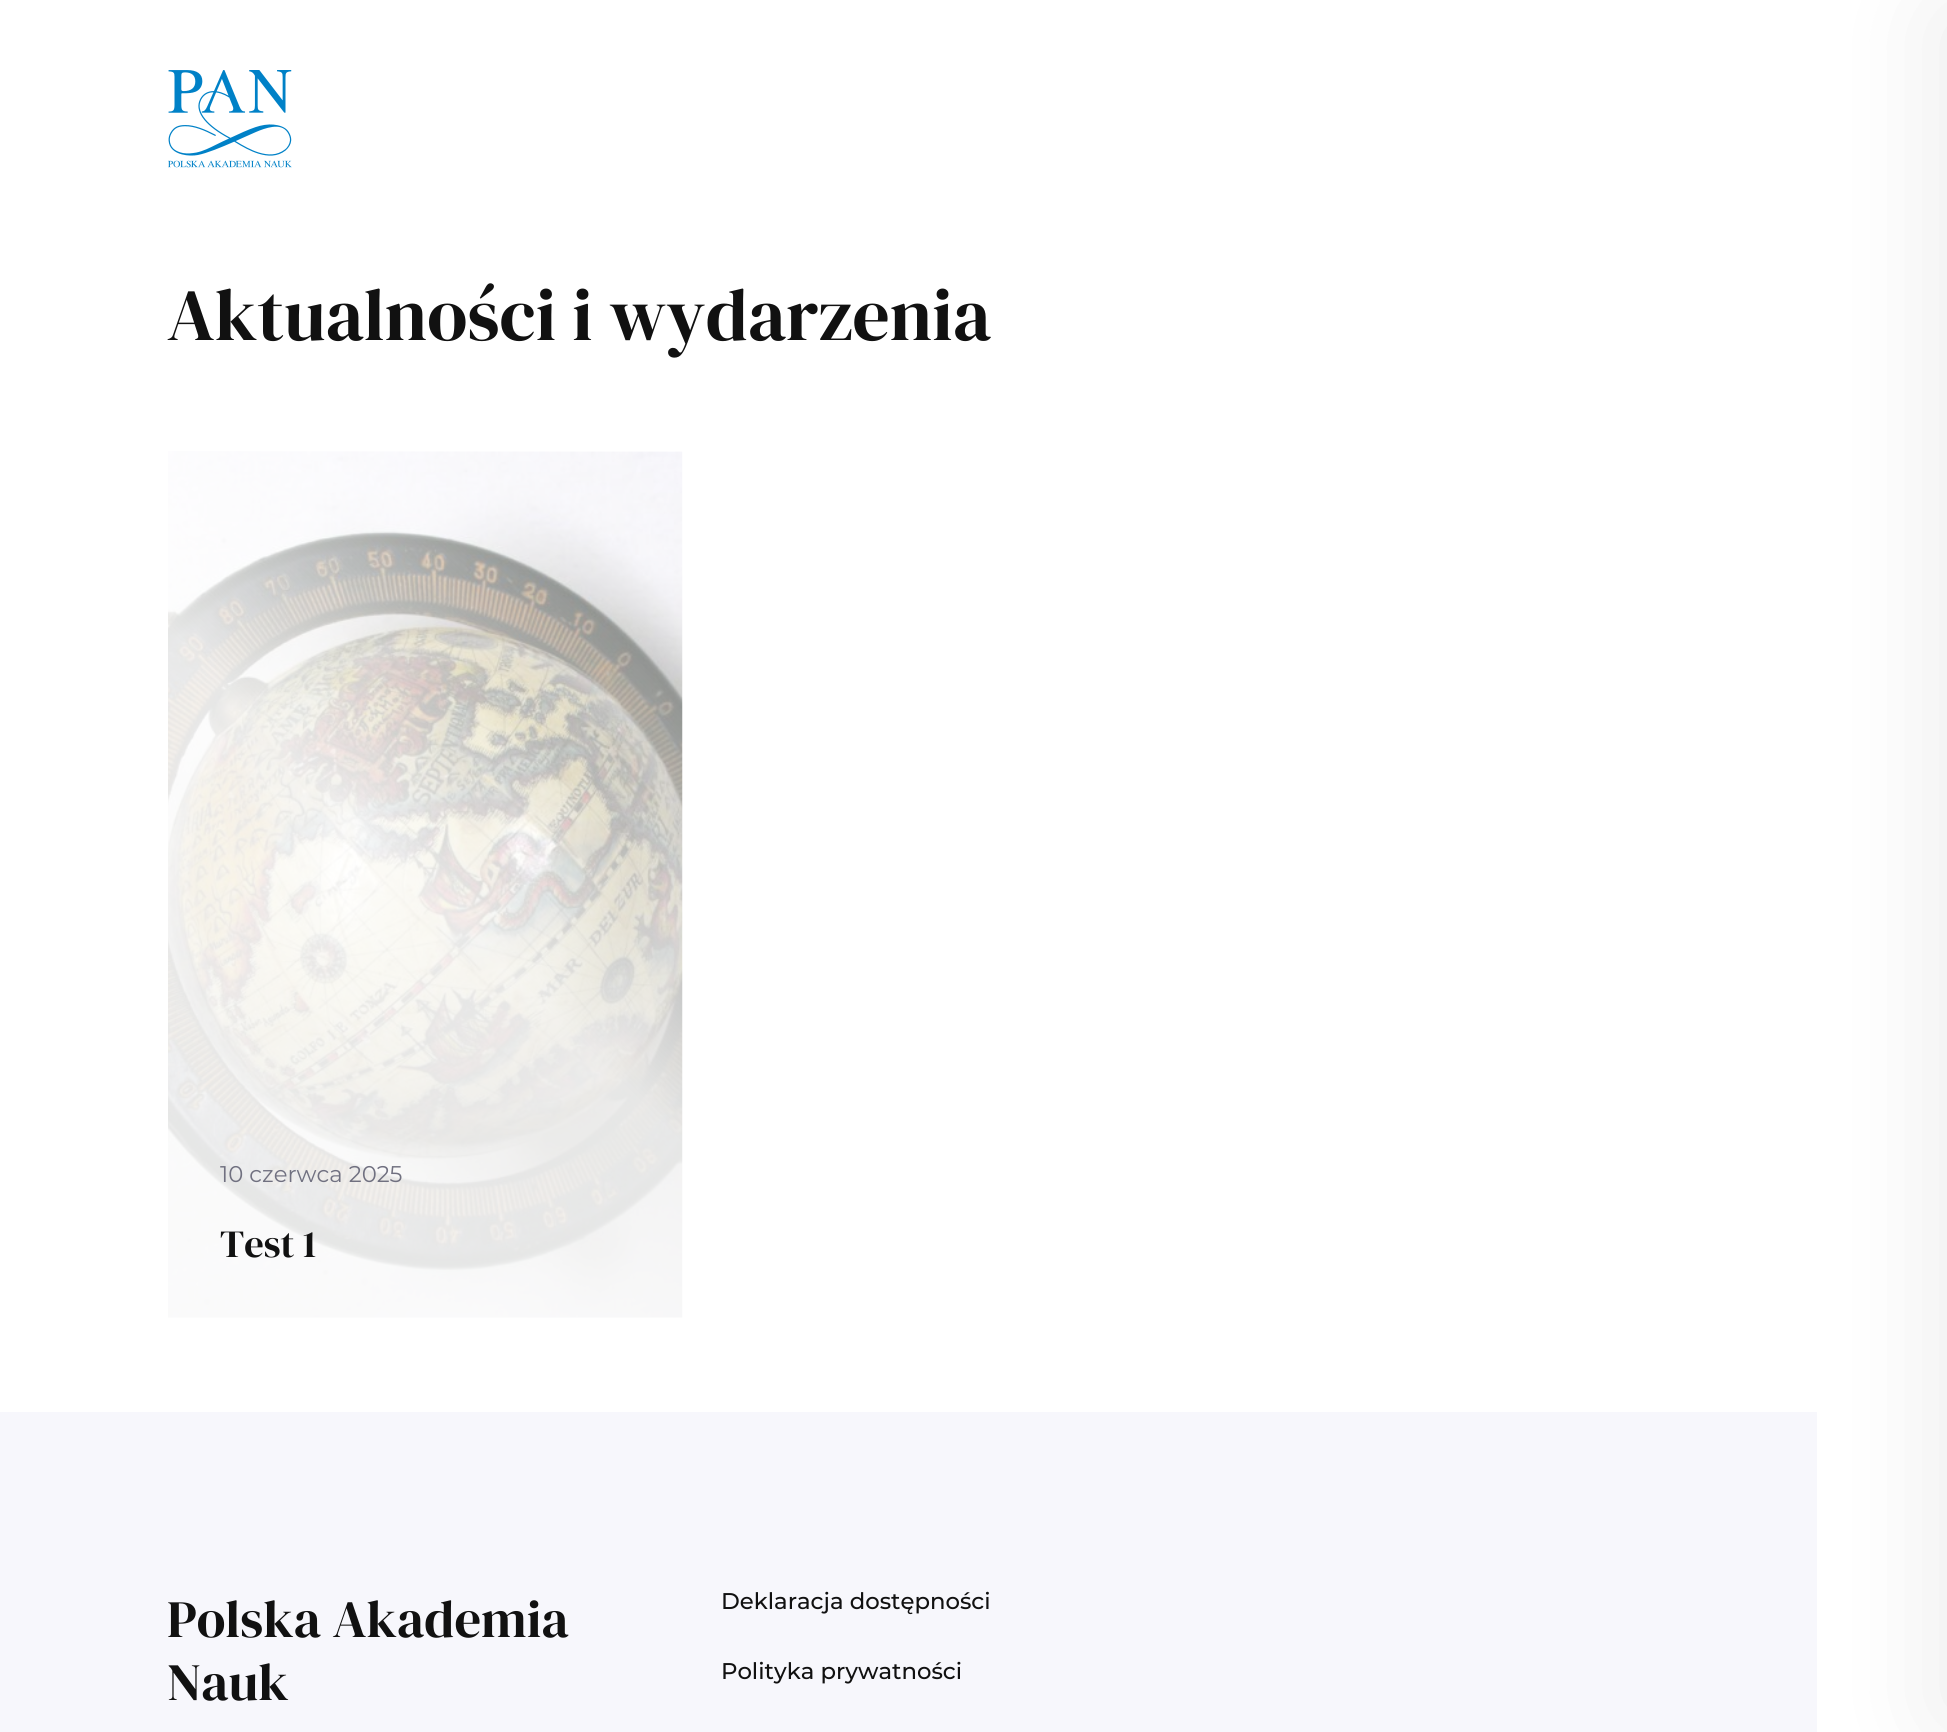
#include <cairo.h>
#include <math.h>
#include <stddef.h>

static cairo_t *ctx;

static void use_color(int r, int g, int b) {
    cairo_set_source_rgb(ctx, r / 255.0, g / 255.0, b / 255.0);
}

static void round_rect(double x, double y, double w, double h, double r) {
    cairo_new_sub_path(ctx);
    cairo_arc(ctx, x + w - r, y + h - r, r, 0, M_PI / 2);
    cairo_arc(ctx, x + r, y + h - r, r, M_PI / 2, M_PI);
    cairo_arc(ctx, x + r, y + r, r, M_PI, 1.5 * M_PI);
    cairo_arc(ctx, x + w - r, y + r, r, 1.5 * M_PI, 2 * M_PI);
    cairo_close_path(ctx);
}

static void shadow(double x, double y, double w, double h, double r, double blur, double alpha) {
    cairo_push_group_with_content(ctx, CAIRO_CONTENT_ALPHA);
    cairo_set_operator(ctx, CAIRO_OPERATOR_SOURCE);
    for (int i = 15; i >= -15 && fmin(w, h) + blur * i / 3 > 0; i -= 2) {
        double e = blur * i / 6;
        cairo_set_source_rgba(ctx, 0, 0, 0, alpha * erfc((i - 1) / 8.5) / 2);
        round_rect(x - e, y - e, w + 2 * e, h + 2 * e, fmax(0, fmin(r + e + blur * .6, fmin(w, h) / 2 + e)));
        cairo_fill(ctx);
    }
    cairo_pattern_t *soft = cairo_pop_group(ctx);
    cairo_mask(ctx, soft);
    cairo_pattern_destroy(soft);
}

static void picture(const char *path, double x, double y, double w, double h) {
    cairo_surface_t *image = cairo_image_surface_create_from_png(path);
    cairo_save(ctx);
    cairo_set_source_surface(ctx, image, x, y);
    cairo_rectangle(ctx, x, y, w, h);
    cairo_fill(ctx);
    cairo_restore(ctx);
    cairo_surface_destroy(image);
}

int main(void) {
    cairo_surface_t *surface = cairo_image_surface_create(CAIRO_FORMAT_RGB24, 1947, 1732);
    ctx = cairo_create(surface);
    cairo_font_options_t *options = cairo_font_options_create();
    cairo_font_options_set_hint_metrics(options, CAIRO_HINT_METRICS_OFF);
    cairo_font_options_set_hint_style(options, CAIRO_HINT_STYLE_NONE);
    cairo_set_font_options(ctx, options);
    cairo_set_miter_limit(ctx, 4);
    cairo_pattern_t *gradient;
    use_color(255, 255, 255);
    cairo_paint(ctx);
    picture("img1.png", 168, 70, 124, 98);
    use_color(247, 247, 252);
    cairo_rectangle(ctx, 0, 1412, 1817, 320);
    cairo_fill(ctx);
    use_color(17, 17, 17);
    shadow(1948, 18, 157, 1697, 0, 52.5, 0.1);
    cairo_select_font_face(ctx, "DM Serif Display", CAIRO_FONT_SLANT_NORMAL, CAIRO_FONT_WEIGHT_NORMAL);
    cairo_set_font_size(ctx, 73.5);
    use_color(17, 17, 17);
    cairo_move_to(ctx, 167, 340);
    cairo_show_text(ctx, "Aktualności i wydarzenia");
    picture("img2.png", 168, 451, 515, 867);
    gradient = cairo_pattern_create_linear(80, 1230, 770, 539);
    cairo_pattern_add_color_stop_rgba(gradient, 0, 1, 1, 1, 0.9);
    cairo_pattern_add_color_stop_rgba(gradient, 0.5, 1, 1, 1, 0.9);
    cairo_pattern_add_color_stop_rgba(gradient, 1, 1, 1, 1, 0.38);
    cairo_set_source(ctx, gradient);
    cairo_pattern_destroy(gradient);
    cairo_rectangle(ctx, 168, 452, 515, 866);
    cairo_fill(ctx);
    cairo_select_font_face(ctx, "Montserrat", CAIRO_FONT_SLANT_NORMAL, CAIRO_FONT_WEIGHT_NORMAL);
    cairo_set_font_size(ctx, 22.75);
    use_color(112, 112, 128);
    cairo_move_to(ctx, 220, 1182);
    cairo_show_text(ctx, "10 czerwca 2025");
    cairo_select_font_face(ctx, "DM Serif Display", CAIRO_FONT_SLANT_NORMAL, CAIRO_FONT_WEIGHT_NORMAL);
    cairo_set_font_size(ctx, 38.5);
    use_color(17, 17, 17);
    cairo_move_to(ctx, 220, 1257);
    cairo_show_text(ctx, "Test 1");
    cairo_set_font_size(ctx, 52.5);
    cairo_move_to(ctx, 167, 1637);
    cairo_show_text(ctx, "Polska Akademia");
    cairo_move_to(ctx, 167, 1700);
    cairo_show_text(ctx, "Nauk");
    cairo_select_font_face(ctx, "Montserrat Medium", CAIRO_FONT_SLANT_NORMAL, CAIRO_FONT_WEIGHT_NORMAL);
    cairo_set_font_size(ctx, 22.75);
    cairo_move_to(ctx, 721, 1609);
    cairo_show_text(ctx, "Deklaracja dostępności");
    cairo_move_to(ctx, 721, 1679);
    cairo_show_text(ctx, "Polityka prywatności");
    cairo_surface_write_to_png(surface, "result.png");
    cairo_font_options_destroy(options);
    cairo_destroy(ctx);
    cairo_surface_destroy(surface);
    return 0;
}
